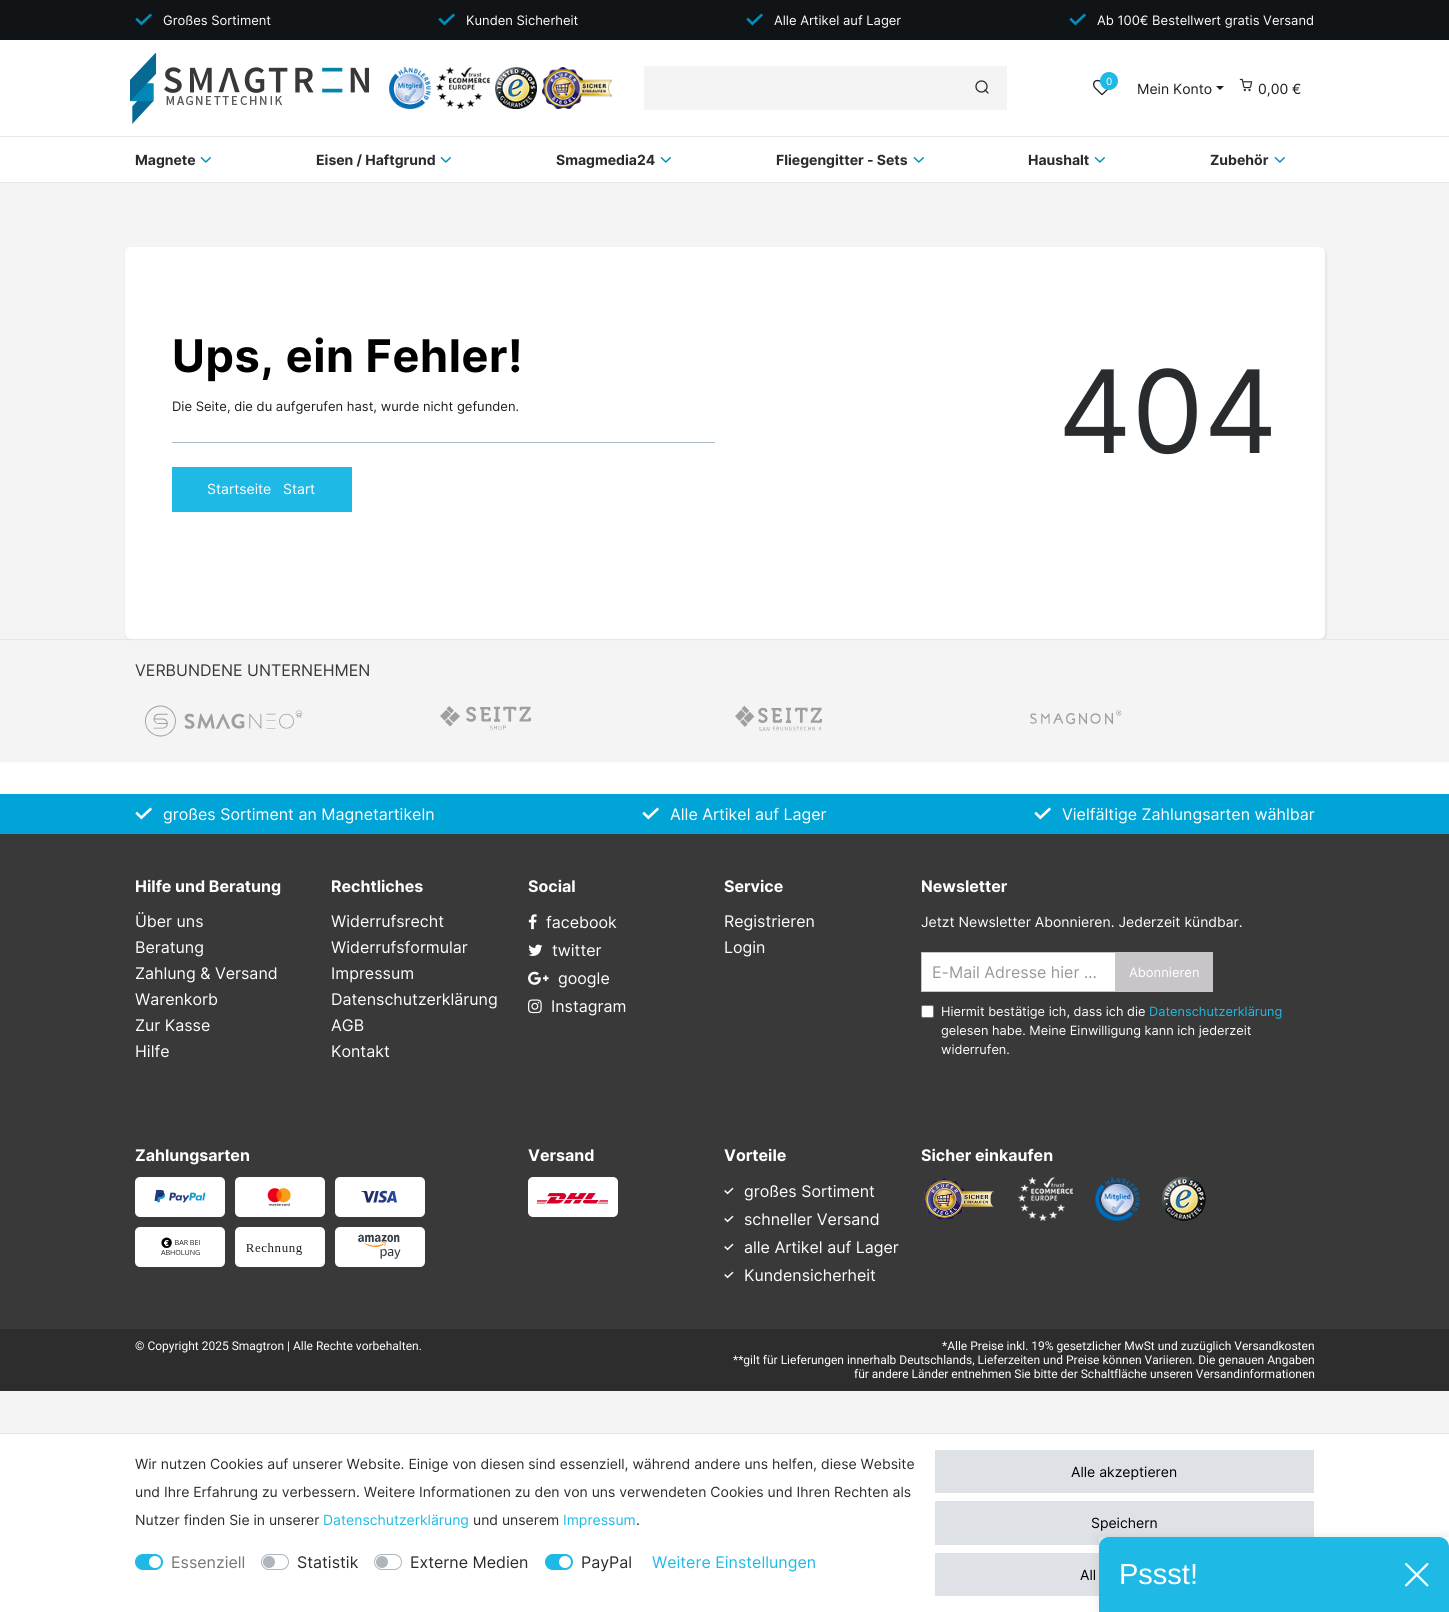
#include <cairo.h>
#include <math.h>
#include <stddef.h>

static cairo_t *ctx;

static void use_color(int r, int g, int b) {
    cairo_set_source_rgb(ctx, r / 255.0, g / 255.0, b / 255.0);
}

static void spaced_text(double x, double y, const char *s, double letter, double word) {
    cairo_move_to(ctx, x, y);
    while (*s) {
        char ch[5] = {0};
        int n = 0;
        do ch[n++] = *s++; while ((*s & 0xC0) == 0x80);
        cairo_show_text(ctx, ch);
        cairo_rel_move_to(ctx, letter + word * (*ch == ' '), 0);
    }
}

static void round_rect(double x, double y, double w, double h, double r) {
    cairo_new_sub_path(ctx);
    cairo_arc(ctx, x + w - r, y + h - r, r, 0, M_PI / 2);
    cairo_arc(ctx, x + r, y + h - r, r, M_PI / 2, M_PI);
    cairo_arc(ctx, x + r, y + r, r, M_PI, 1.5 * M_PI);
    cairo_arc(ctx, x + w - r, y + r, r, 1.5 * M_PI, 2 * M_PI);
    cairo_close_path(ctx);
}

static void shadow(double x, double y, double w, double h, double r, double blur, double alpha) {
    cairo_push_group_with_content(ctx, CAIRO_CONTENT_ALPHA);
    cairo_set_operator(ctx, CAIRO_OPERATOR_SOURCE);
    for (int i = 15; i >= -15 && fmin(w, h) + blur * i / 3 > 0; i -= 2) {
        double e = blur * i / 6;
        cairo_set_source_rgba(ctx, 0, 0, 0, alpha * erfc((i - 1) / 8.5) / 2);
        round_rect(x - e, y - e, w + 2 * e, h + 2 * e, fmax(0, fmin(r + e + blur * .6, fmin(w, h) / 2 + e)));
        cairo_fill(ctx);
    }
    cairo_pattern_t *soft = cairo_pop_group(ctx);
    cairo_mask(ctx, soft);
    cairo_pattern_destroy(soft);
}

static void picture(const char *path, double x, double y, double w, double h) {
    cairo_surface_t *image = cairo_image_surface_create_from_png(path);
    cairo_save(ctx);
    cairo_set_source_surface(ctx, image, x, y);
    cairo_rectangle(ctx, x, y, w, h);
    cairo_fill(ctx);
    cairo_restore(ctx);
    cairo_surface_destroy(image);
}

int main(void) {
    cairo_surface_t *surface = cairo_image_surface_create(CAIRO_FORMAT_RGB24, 1449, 1612);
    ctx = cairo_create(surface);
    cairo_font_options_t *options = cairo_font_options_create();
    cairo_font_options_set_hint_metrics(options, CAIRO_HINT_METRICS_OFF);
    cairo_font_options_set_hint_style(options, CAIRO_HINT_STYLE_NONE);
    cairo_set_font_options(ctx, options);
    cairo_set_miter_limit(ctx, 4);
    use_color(244, 244, 244);
    cairo_paint(ctx);
    use_color(17, 20, 23);
    cairo_rectangle(ctx, 0, 0, 1449, 40);
    cairo_fill(ctx);
    picture("img1.png", 135, 13, 17, 13);
    cairo_select_font_face(ctx, "Inter", CAIRO_FONT_SLANT_NORMAL, CAIRO_FONT_WEIGHT_NORMAL);
    cairo_set_font_size(ctx, 13);
    use_color(255, 255, 255);
    cairo_move_to(ctx, 163, 25);
    cairo_show_text(ctx, "Großes Sortiment");
    picture("img1.png", 438, 13, 17, 13);
    cairo_move_to(ctx, 466, 25);
    cairo_show_text(ctx, "Kunden Sicherheit");
    picture("img1.png", 746, 13, 17, 13);
    cairo_move_to(ctx, 774, 25);
    cairo_show_text(ctx, "Alle Artikel auf Lager");
    picture("img1.png", 1069, 13, 17, 13);
    cairo_move_to(ctx, 1097, 25);
    cairo_show_text(ctx, "Ab 100€ Bestellwert gratis Versand");
    cairo_rectangle(ctx, 0, 40, 1449, 96);
    cairo_fill(ctx);
    picture("img2.png", 130, 53, 239, 71);
    picture("img3.png", 389, 67, 42, 42);
    picture("img4.png", 436, 67, 54, 42);
    picture("img5.png", 495, 67, 42, 42);
    picture("img6.png", 542, 67, 70, 42);
    use_color(244, 244, 244);
    cairo_rectangle(ctx, 644, 66, 363, 44);
    cairo_fill(ctx);
    cairo_arc(ctx, 981.5, 86.5, 5.5, 0, 2 * M_PI);
    use_color(41, 44, 47);
    cairo_set_line_width(ctx, 1.3);
    cairo_stroke(ctx);
    cairo_new_path(ctx);
    cairo_move_to(ctx, 988, 93);
    cairo_line_to(ctx, 985, 90);
    cairo_set_line_cap(ctx, CAIRO_LINE_CAP_ROUND);
    cairo_set_line_join(ctx, CAIRO_LINE_JOIN_ROUND);
    cairo_stroke(ctx);
    picture("img7.png", 1093, 79, 16, 17);
    use_color(30, 186, 229);
    cairo_arc(ctx, 1109, 81, 9, 0, 2 * M_PI);
    cairo_fill(ctx);
    cairo_set_font_size(ctx, 10);
    use_color(255, 255, 255);
    cairo_move_to(ctx, 1106, 85);
    cairo_show_text(ctx, "0");
    cairo_set_font_size(ctx, 14);
    use_color(30, 30, 30);
    cairo_move_to(ctx, 1137, 94);
    cairo_show_text(ctx, "Mein Konto");
    use_color(26, 30, 34);
    cairo_new_path(ctx);
    cairo_move_to(ctx, 1216, 86);
    cairo_line_to(ctx, 1224, 86);
    cairo_line_to(ctx, 1220, 90);
    cairo_close_path(ctx);
    cairo_fill(ctx);
    picture("img8.png", 1239, 78, 14, 14);
    use_color(30, 30, 30);
    cairo_move_to(ctx, 1258, 94);
    cairo_show_text(ctx, "0,00 €");
    use_color(255, 255, 255);
    cairo_rectangle(ctx, 0, 137, 1449, 45);
    cairo_fill(ctx);
    use_color(231, 231, 231);
    cairo_rectangle(ctx, 0, 136, 1449, 1);
    cairo_fill(ctx);
    cairo_rectangle(ctx, 0, 182, 1449, 1);
    cairo_fill(ctx);
    cairo_select_font_face(ctx, "Inter", CAIRO_FONT_SLANT_NORMAL, CAIRO_FONT_WEIGHT_BOLD);
    use_color(41, 44, 47);
    cairo_move_to(ctx, 135, 165);
    cairo_show_text(ctx, "Magnete");
    picture("img9.png", 200, 157, 11, 6);
    cairo_move_to(ctx, 316, 165);
    cairo_show_text(ctx, "Eisen / Haftgrund");
    picture("img9.png", 440, 157, 11, 6);
    cairo_move_to(ctx, 556, 165);
    cairo_show_text(ctx, "Smagmedia24");
    picture("img9.png", 660, 157, 11, 6);
    cairo_move_to(ctx, 776, 165);
    cairo_show_text(ctx, "Fliegengitter - Sets");
    picture("img9.png", 913, 157, 11, 6);
    cairo_move_to(ctx, 1028, 165);
    cairo_show_text(ctx, "Haushalt");
    picture("img9.png", 1094, 157, 11, 6);
    cairo_move_to(ctx, 1210, 165);
    cairo_show_text(ctx, "Zubehör");
    picture("img9.png", 1274, 157, 11, 6);
    use_color(0, 0, 0);
    shadow(126, 249, 1200, 392, 6, 1.5, 0.1);
    use_color(255, 255, 255);
    round_rect(125, 247, 1200, 392, 6);
    cairo_fill(ctx);
    cairo_set_font_size(ctx, 45);
    use_color(0, 0, 0);
    spaced_text(172, 372, "Ups, ein Fehler!", 0.6, 0);
    cairo_select_font_face(ctx, "Inter", CAIRO_FONT_SLANT_NORMAL, CAIRO_FONT_WEIGHT_NORMAL);
    cairo_set_font_size(ctx, 13);
    use_color(30, 30, 30);
    cairo_move_to(ctx, 172, 411);
    cairo_show_text(ctx, "Die Seite, die du aufgerufen hast, wurde nicht gefunden.");
    use_color(171, 185, 199);
    cairo_rectangle(ctx, 172, 442, 543, 1);
    cairo_fill(ctx);
    use_color(30, 186, 229);
    cairo_rectangle(ctx, 172, 467, 180, 45);
    cairo_fill(ctx);
    cairo_set_font_size(ctx, 14);
    use_color(255, 255, 255);
    cairo_move_to(ctx, 207, 494);
    cairo_show_text(ctx, "Startseite");
    cairo_move_to(ctx, 283, 494);
    cairo_show_text(ctx, "Start");
    cairo_set_font_size(ctx, 115);
    use_color(41, 44, 47);
    cairo_move_to(ctx, 1058, 453);
    cairo_show_text(ctx, "404");
    use_color(255, 255, 255);
    cairo_rectangle(ctx, 0, 762, 1449, 32);
    cairo_fill(ctx);
    use_color(230, 230, 230);
    cairo_rectangle(ctx, 0, 639, 1449, 1);
    cairo_fill(ctx);
    use_color(243, 243, 243);
    cairo_rectangle(ctx, 127, 640, 1198, 3);
    cairo_fill(ctx);
    cairo_set_font_size(ctx, 16);
    use_color(56, 57, 56);
    cairo_move_to(ctx, 135, 676);
    cairo_show_text(ctx, "VERBUNDENE UNTERNEHMEN");
    picture("img10.png", 145, 705, 158, 32);
    picture("img11.png", 440, 706, 91, 24);
    picture("img12.png", 735, 706, 87, 25);
    picture("img13.png", 1030, 710, 92, 15);
    use_color(0, 164, 215);
    cairo_rectangle(ctx, 0, 794, 1449, 40);
    cairo_fill(ctx);
    picture("img14.png", 135, 807, 17, 13);
    use_color(255, 255, 255);
    cairo_move_to(ctx, 163, 820);
    cairo_show_text(ctx, "großes Sortiment an Magnetartikeln");
    picture("img14.png", 642, 807, 17, 13);
    cairo_move_to(ctx, 670, 820);
    cairo_show_text(ctx, "Alle Artikel auf Lager");
    picture("img14.png", 1034, 807, 17, 13);
    cairo_move_to(ctx, 1062, 820);
    cairo_show_text(ctx, "Vielfältige Zahlungsarten wählbar");
    cairo_rectangle(ctx, 0, 1434, 1449, 178);
    cairo_fill(ctx);
    use_color(222, 226, 230);
    cairo_rectangle(ctx, 0, 1433, 1449, 1);
    cairo_fill(ctx);
    cairo_set_font_size(ctx, 14);
    use_color(41, 44, 47);
    cairo_move_to(ctx, 135, 1469);
    cairo_show_text(ctx, "Wir nutzen Cookies auf unserer Website. Einige von diesen sind essenziell, während andere uns helfen, diese Website");
    cairo_move_to(ctx, 135, 1497);
    cairo_show_text(ctx, "und Ihre Erfahrung zu verbessern. Weitere Informationen zu den von uns verwendeten Cookies und Ihren Rechten als");
    cairo_move_to(ctx, 135, 1525);
    cairo_show_text(ctx, "Nutzer finden Sie in unserer");
    use_color(30, 186, 229);
    cairo_move_to(ctx, 323, 1525);
    cairo_show_text(ctx, "Datenschutzerklärung");
    use_color(41, 44, 47);
    cairo_move_to(ctx, 473, 1525);
    cairo_show_text(ctx, "und unserem");
    use_color(30, 186, 229);
    cairo_move_to(ctx, 563, 1525);
    cairo_show_text(ctx, "Impressum");
    use_color(41, 44, 47);
    cairo_move_to(ctx, 636, 1525);
    cairo_show_text(ctx, ".");
    use_color(30, 186, 229);
    round_rect(135.5, 1554.5, 27, 15, 7.5);
    cairo_fill_preserve(ctx);
    cairo_set_line_width(ctx, 1);
    cairo_set_line_cap(ctx, CAIRO_LINE_CAP_BUTT);
    cairo_set_line_join(ctx, CAIRO_LINE_JOIN_MITER);
    cairo_stroke(ctx);
    use_color(255, 255, 255);
    cairo_arc(ctx, 155, 1562, 6, 0, 2 * M_PI);
    cairo_fill(ctx);
    cairo_set_font_size(ctx, 16);
    use_color(118, 118, 118);
    cairo_move_to(ctx, 171, 1568);
    cairo_show_text(ctx, "Essenziell");
    round_rect(261.5, 1554.5, 27, 15, 7.5);
    use_color(173, 181, 189);
    cairo_stroke(ctx);
    cairo_arc(ctx, 269, 1562, 6, 0, 2 * M_PI);
    cairo_fill(ctx);
    use_color(41, 44, 47);
    cairo_move_to(ctx, 297, 1568);
    cairo_show_text(ctx, "Statistik");
    round_rect(374.5, 1554.5, 27, 15, 7.5);
    use_color(173, 181, 189);
    cairo_stroke(ctx);
    cairo_arc(ctx, 382, 1562, 6, 0, 2 * M_PI);
    cairo_fill(ctx);
    use_color(41, 44, 47);
    cairo_move_to(ctx, 410, 1568);
    cairo_show_text(ctx, "Externe Medien");
    use_color(30, 186, 229);
    round_rect(545.5, 1554.5, 27, 15, 7.5);
    cairo_fill_preserve(ctx);
    cairo_stroke(ctx);
    use_color(255, 255, 255);
    cairo_arc(ctx, 565, 1562, 6, 0, 2 * M_PI);
    cairo_fill(ctx);
    use_color(41, 44, 47);
    cairo_move_to(ctx, 581, 1568);
    cairo_show_text(ctx, "PayPal");
    use_color(30, 186, 229);
    cairo_move_to(ctx, 652, 1568);
    cairo_show_text(ctx, "Weitere Einstellungen");
    use_color(222, 226, 230);
    cairo_rectangle(ctx, 935, 1450, 379, 43);
    cairo_fill(ctx);
    cairo_set_font_size(ctx, 14);
    use_color(0, 0, 0);
    cairo_move_to(ctx, 1071, 1477);
    cairo_show_text(ctx, "Alle akzeptieren");
    use_color(222, 226, 230);
    cairo_rectangle(ctx, 935, 1501, 379, 44);
    cairo_fill(ctx);
    use_color(0, 0, 0);
    cairo_move_to(ctx, 1091, 1528);
    cairo_show_text(ctx, "Speichern");
    use_color(222, 226, 230);
    cairo_rectangle(ctx, 935, 1553, 164, 43);
    cairo_fill(ctx);
    use_color(0, 0, 0);
    cairo_move_to(ctx, 1080, 1580);
    cairo_show_text(ctx, "All");
    use_color(57, 57, 57);
    cairo_rectangle(ctx, 0, 834, 1449, 495);
    cairo_fill(ctx);
    cairo_select_font_face(ctx, "Inter", CAIRO_FONT_SLANT_NORMAL, CAIRO_FONT_WEIGHT_BOLD);
    cairo_set_font_size(ctx, 16);
    use_color(255, 255, 255);
    cairo_move_to(ctx, 135, 892);
    cairo_show_text(ctx, "Hilfe und Beratung");
    cairo_select_font_face(ctx, "Inter", CAIRO_FONT_SLANT_NORMAL, CAIRO_FONT_WEIGHT_NORMAL);
    cairo_move_to(ctx, 135, 927);
    cairo_show_text(ctx, "Über uns");
    cairo_move_to(ctx, 135, 953);
    cairo_show_text(ctx, "Beratung");
    cairo_move_to(ctx, 135, 979);
    cairo_show_text(ctx, "Zahlung & Versand");
    cairo_move_to(ctx, 135, 1005);
    cairo_show_text(ctx, "Warenkorb");
    cairo_move_to(ctx, 135, 1031);
    cairo_show_text(ctx, "Zur Kasse");
    cairo_move_to(ctx, 135, 1057);
    cairo_show_text(ctx, "Hilfe");
    cairo_select_font_face(ctx, "Inter", CAIRO_FONT_SLANT_NORMAL, CAIRO_FONT_WEIGHT_BOLD);
    cairo_move_to(ctx, 331, 892);
    cairo_show_text(ctx, "Rechtliches");
    cairo_select_font_face(ctx, "Inter", CAIRO_FONT_SLANT_NORMAL, CAIRO_FONT_WEIGHT_NORMAL);
    cairo_move_to(ctx, 331, 927);
    cairo_show_text(ctx, "Widerrufsrecht");
    cairo_move_to(ctx, 331, 953);
    cairo_show_text(ctx, "Widerrufsformular");
    cairo_move_to(ctx, 331, 979);
    cairo_show_text(ctx, "Impressum");
    cairo_move_to(ctx, 331, 1005);
    cairo_show_text(ctx, "Datenschutzerklärung");
    cairo_move_to(ctx, 331, 1031);
    cairo_show_text(ctx, "AGB");
    cairo_move_to(ctx, 331, 1057);
    cairo_show_text(ctx, "Kontakt");
    cairo_select_font_face(ctx, "Inter", CAIRO_FONT_SLANT_NORMAL, CAIRO_FONT_WEIGHT_BOLD);
    cairo_move_to(ctx, 528, 892);
    cairo_show_text(ctx, "Social");
    picture("img15.png", 528, 914, 9, 16);
    cairo_select_font_face(ctx, "Inter", CAIRO_FONT_SLANT_NORMAL, CAIRO_FONT_WEIGHT_NORMAL);
    cairo_move_to(ctx, 546, 928);
    cairo_show_text(ctx, "facebook");
    picture("img16.png", 528, 944, 15, 12);
    cairo_move_to(ctx, 552, 956);
    cairo_show_text(ctx, "twitter");
    picture("img17.png", 528, 971, 21, 14);
    cairo_move_to(ctx, 558, 984);
    cairo_show_text(ctx, "google");
    picture("img18.png", 528, 999, 14, 15);
    cairo_move_to(ctx, 551, 1012);
    cairo_show_text(ctx, "Instagram");
    cairo_select_font_face(ctx, "Inter", CAIRO_FONT_SLANT_NORMAL, CAIRO_FONT_WEIGHT_BOLD);
    cairo_move_to(ctx, 724, 892);
    cairo_show_text(ctx, "Service");
    cairo_select_font_face(ctx, "Inter", CAIRO_FONT_SLANT_NORMAL, CAIRO_FONT_WEIGHT_NORMAL);
    cairo_move_to(ctx, 724, 927);
    cairo_show_text(ctx, "Registrieren");
    cairo_move_to(ctx, 724, 953);
    cairo_show_text(ctx, "Login");
    cairo_select_font_face(ctx, "Inter", CAIRO_FONT_SLANT_NORMAL, CAIRO_FONT_WEIGHT_BOLD);
    cairo_move_to(ctx, 921, 892);
    cairo_show_text(ctx, "Newsletter");
    cairo_select_font_face(ctx, "Inter", CAIRO_FONT_SLANT_NORMAL, CAIRO_FONT_WEIGHT_NORMAL);
    cairo_set_font_size(ctx, 14);
    cairo_move_to(ctx, 921, 927);
    cairo_show_text(ctx, "Jetzt Newsletter Abonnieren. Jederzeit kündbar.");
    cairo_rectangle(ctx, 921.5, 952.5, 194, 39);
    cairo_fill_preserve(ctx);
    use_color(200, 198, 201);
    cairo_stroke(ctx);
    cairo_set_font_size(ctx, 16);
    use_color(153, 153, 153);
    cairo_move_to(ctx, 932, 978);
    cairo_show_text(ctx, "E-Mail Adresse hier …");
    use_color(199, 197, 200);
    cairo_rectangle(ctx, 1116, 952, 97, 40);
    cairo_fill(ctx);
    cairo_set_font_size(ctx, 13);
    use_color(255, 255, 255);
    cairo_move_to(ctx, 1129, 977);
    cairo_show_text(ctx, "Abonnieren");
    round_rect(921.5, 1005.5, 12, 12, 1.5);
    cairo_fill_preserve(ctx);
    use_color(118, 118, 118);
    cairo_stroke(ctx);
    cairo_set_font_size(ctx, 12.8);
    use_color(255, 255, 255);
    cairo_move_to(ctx, 941, 1016);
    cairo_show_text(ctx, "Hiermit bestätige ich, dass ich die");
    use_color(30, 186, 229);
    cairo_move_to(ctx, 1149, 1016);
    cairo_show_text(ctx, "Datenschutzerklärung");
    use_color(255, 255, 255);
    cairo_move_to(ctx, 941, 1035);
    cairo_show_text(ctx, "gelesen habe. Meine Einwilligung kann ich jederzeit");
    cairo_move_to(ctx, 941, 1054);
    cairo_show_text(ctx, "widerrufen.");
    cairo_select_font_face(ctx, "Inter", CAIRO_FONT_SLANT_NORMAL, CAIRO_FONT_WEIGHT_BOLD);
    cairo_set_font_size(ctx, 16);
    cairo_move_to(ctx, 135, 1161);
    cairo_show_text(ctx, "Zahlungsarten");
    round_rect(135, 1177, 90, 40, 5);
    cairo_fill(ctx);
    picture("img19.png", 154, 1189, 52, 14);
    round_rect(235, 1177, 90, 40, 5);
    cairo_fill(ctx);
    picture("img20.png", 267, 1188, 24, 18);
    round_rect(335, 1177, 90, 40, 5);
    cairo_fill(ctx);
    picture("img21.png", 361, 1190, 36, 13);
    round_rect(135, 1227, 90, 40, 5);
    cairo_fill(ctx);
    picture("img22.png", 161, 1237, 39, 18);
    round_rect(235, 1227, 90, 40, 5);
    cairo_fill(ctx);
    picture("img23.png", 246, 1243, 56, 12);
    round_rect(335, 1227, 90, 40, 5);
    cairo_fill(ctx);
    picture("img24.png", 358, 1234, 43, 25);
    cairo_move_to(ctx, 528, 1161);
    cairo_show_text(ctx, "Versand");
    round_rect(528, 1177, 90, 40, 5);
    cairo_fill(ctx);
    picture("img25.png", 537, 1193, 71, 11);
    cairo_move_to(ctx, 724, 1161);
    cairo_show_text(ctx, "Vorteile");
    picture("img26.png", 724, 1187, 10, 8);
    cairo_select_font_face(ctx, "Inter", CAIRO_FONT_SLANT_NORMAL, CAIRO_FONT_WEIGHT_NORMAL);
    cairo_move_to(ctx, 744, 1197);
    cairo_show_text(ctx, "großes Sortiment");
    picture("img26.png", 724, 1215, 10, 8);
    cairo_move_to(ctx, 744, 1225);
    cairo_show_text(ctx, "schneller Versand");
    picture("img26.png", 724, 1243, 10, 8);
    cairo_move_to(ctx, 744, 1253);
    cairo_show_text(ctx, "alle Artikel auf Lager");
    picture("img26.png", 724, 1271, 10, 8);
    cairo_move_to(ctx, 744, 1281);
    cairo_show_text(ctx, "Kundensicherheit");
    cairo_select_font_face(ctx, "Inter", CAIRO_FONT_SLANT_NORMAL, CAIRO_FONT_WEIGHT_BOLD);
    cairo_move_to(ctx, 921, 1161);
    cairo_show_text(ctx, "Sicher einkaufen");
    picture("img27.png", 922, 1177, 72, 44);
    picture("img28.png", 1018, 1177, 55, 44);
    picture("img29.png", 1095, 1177, 45, 44);
    picture("img30.png", 1162, 1177, 44, 44);
    use_color(45, 45, 45);
    cairo_rectangle(ctx, 0, 1329, 1449, 62);
    cairo_fill(ctx);
    cairo_select_font_face(ctx, "Roboto", CAIRO_FONT_SLANT_NORMAL, CAIRO_FONT_WEIGHT_NORMAL);
    cairo_set_font_size(ctx, 12);
    use_color(255, 255, 255);
    cairo_move_to(ctx, 135, 1350);
    cairo_show_text(ctx, "© Copyright 2025 Smagtron | Alle Rechte vorbehalten.");
    cairo_move_to(ctx, 942, 1350);
    cairo_show_text(ctx, "*Alle Preise inkl. 19% gesetzlicher MwSt und zuzüglich Versandkosten");
    cairo_move_to(ctx, 733, 1364);
    cairo_show_text(ctx, "**gilt für Lieferungen innerhalb Deutschlands, Lieferzeiten und Preise können Variieren. Die genauen Angaben");
    cairo_move_to(ctx, 854, 1378);
    cairo_show_text(ctx, "für andere Länder entnehmen Sie bitte der Schaltfläche unseren Versandinformationen");
    cairo_save(ctx);
    cairo_set_fill_rule(ctx, CAIRO_FILL_RULE_EVEN_ODD);
    cairo_new_path(ctx);
    cairo_move_to(ctx, 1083, 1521);
    cairo_line_to(ctx, 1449, 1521);
    cairo_line_to(ctx, 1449, 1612);
    cairo_line_to(ctx, 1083, 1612);
    cairo_close_path(ctx);
    cairo_move_to(ctx, 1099, 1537);
    cairo_line_to(ctx, 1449, 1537);
    cairo_line_to(ctx, 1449, 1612);
    cairo_line_to(ctx, 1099, 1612);
    cairo_close_path(ctx);
    cairo_clip(ctx);
    use_color(0, 0, 0);
    shadow(1099, 1537, 350, 75, 0, 5, 0.1);
    cairo_restore(ctx);
    use_color(30, 186, 229);
    cairo_new_path(ctx);
    cairo_move_to(ctx, 1109, 1537);
    cairo_line_to(ctx, 1439, 1537);
    cairo_curve_to(ctx, 1444.5, 1537, 1449, 1541.5, 1449, 1547);
    cairo_line_to(ctx, 1449, 1612);
    cairo_line_to(ctx, 1099, 1612);
    cairo_line_to(ctx, 1099, 1547);
    cairo_curve_to(ctx, 1099, 1541.5, 1103.5, 1537, 1109, 1537);
    cairo_close_path(ctx);
    cairo_fill(ctx);
    cairo_select_font_face(ctx, "Liberation Sans", CAIRO_FONT_SLANT_NORMAL, CAIRO_FONT_WEIGHT_NORMAL);
    cairo_set_font_size(ctx, 29);
    use_color(255, 255, 255);
    cairo_move_to(ctx, 1119, 1584);
    cairo_show_text(ctx, "Pssst!");
    picture("img31.png", 1405, 1563, 24, 24);
    cairo_surface_write_to_png(surface, "result.png");
    cairo_font_options_destroy(options);
    cairo_destroy(ctx);
    cairo_surface_destroy(surface);
    return 0;
}
